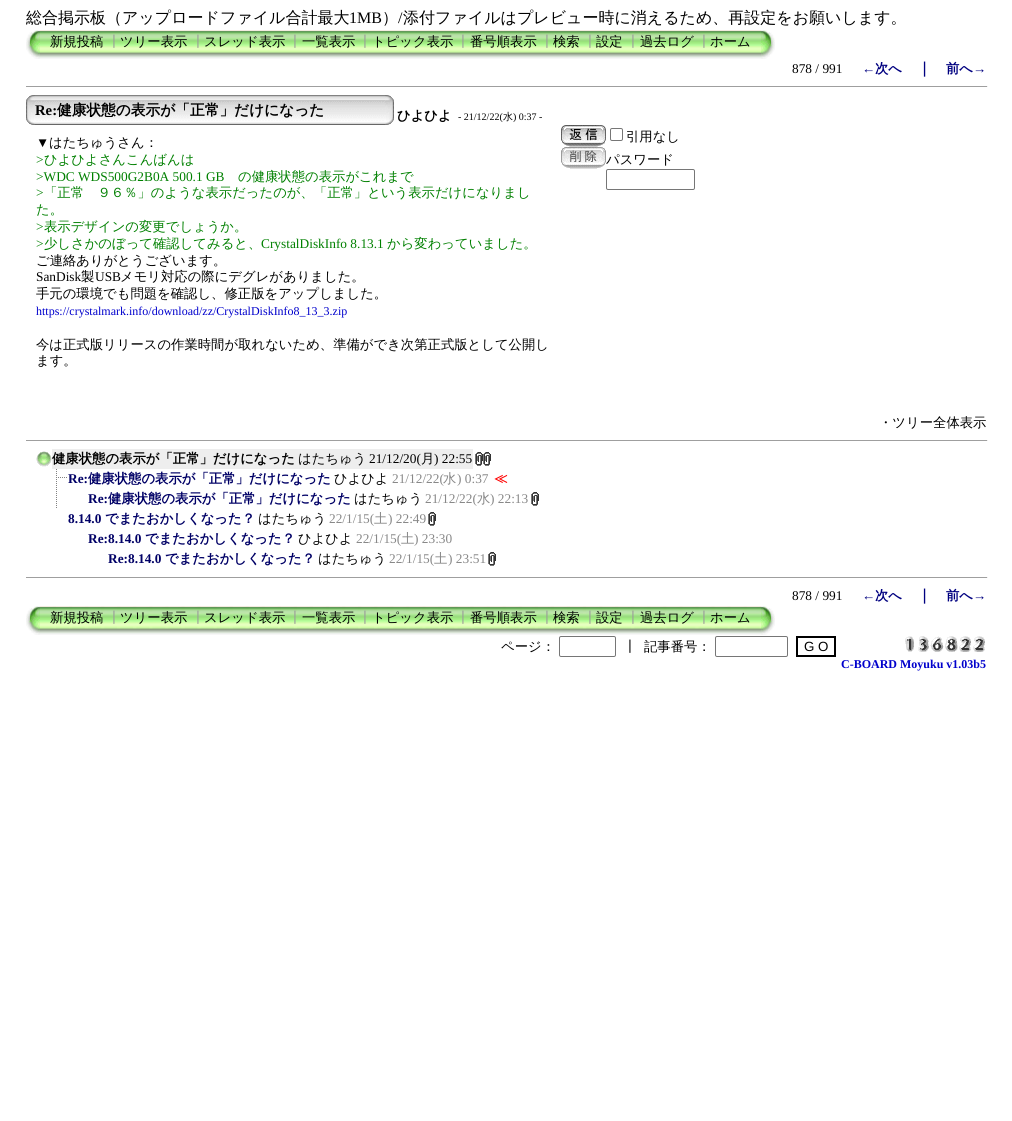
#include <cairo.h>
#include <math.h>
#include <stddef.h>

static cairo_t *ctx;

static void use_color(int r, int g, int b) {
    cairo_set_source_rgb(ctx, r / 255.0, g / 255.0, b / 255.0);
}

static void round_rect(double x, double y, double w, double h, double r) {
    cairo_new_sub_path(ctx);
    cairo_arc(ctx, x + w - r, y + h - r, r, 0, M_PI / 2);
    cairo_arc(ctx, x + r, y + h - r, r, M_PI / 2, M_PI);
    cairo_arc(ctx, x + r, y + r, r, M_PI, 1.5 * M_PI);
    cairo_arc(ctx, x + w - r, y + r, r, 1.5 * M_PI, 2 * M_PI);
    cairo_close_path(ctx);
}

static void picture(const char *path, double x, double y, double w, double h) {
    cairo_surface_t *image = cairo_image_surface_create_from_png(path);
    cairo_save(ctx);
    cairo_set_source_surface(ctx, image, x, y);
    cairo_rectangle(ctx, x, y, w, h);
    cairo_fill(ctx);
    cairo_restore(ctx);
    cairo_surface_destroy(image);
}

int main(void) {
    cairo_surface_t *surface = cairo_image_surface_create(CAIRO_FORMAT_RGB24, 1012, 1121);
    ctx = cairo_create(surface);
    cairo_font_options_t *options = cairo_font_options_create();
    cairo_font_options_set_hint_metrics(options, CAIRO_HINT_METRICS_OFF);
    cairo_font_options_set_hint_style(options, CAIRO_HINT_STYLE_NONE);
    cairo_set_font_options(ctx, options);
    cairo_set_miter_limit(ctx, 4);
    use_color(255, 255, 255);
    cairo_paint(ctx);
    cairo_select_font_face(ctx, "WenQuanYi Zen Hei Medium", CAIRO_FONT_SLANT_NORMAL, CAIRO_FONT_WEIGHT_NORMAL);
    cairo_set_font_size(ctx, 16);
    use_color(0, 0, 0);
    cairo_move_to(ctx, 26, 23);
    cairo_show_text(ctx, "総合掲示板（アップロードファイル合計最大");
    cairo_select_font_face(ctx, "Liberation Serif", CAIRO_FONT_SLANT_NORMAL, CAIRO_FONT_WEIGHT_NORMAL);
    cairo_move_to(ctx, 349, 23);
    cairo_show_text(ctx, "1MB");
    cairo_select_font_face(ctx, "WenQuanYi Zen Hei Medium", CAIRO_FONT_SLANT_NORMAL, CAIRO_FONT_WEIGHT_NORMAL);
    cairo_move_to(ctx, 382, 23);
    cairo_show_text(ctx, "）");
    cairo_select_font_face(ctx, "Liberation Serif", CAIRO_FONT_SLANT_NORMAL, CAIRO_FONT_WEIGHT_NORMAL);
    cairo_move_to(ctx, 398, 23);
    cairo_show_text(ctx, "/");
    cairo_select_font_face(ctx, "WenQuanYi Zen Hei Medium", CAIRO_FONT_SLANT_NORMAL, CAIRO_FONT_WEIGHT_NORMAL);
    cairo_move_to(ctx, 403, 23);
    cairo_show_text(ctx, "添付ファイルはプレビュー時に消えるため、再設定をお願いします。");
    picture("img1.png", 26, 30, 14, 29);
    picture("img2.png", 40, 30, 721, 29);
    cairo_set_font_size(ctx, 13.35);
    cairo_move_to(ctx, 50, 46);
    cairo_show_text(ctx, "新規投稿");
    use_color(153, 153, 153);
    cairo_move_to(ctx, 107, 46);
    cairo_show_text(ctx, "┃");
    use_color(0, 0, 0);
    cairo_move_to(ctx, 120, 46);
    cairo_show_text(ctx, "ツリー表示");
    use_color(153, 153, 153);
    cairo_move_to(ctx, 191, 46);
    cairo_show_text(ctx, "┃");
    use_color(0, 0, 0);
    cairo_move_to(ctx, 204, 46);
    cairo_show_text(ctx, "スレッド表示");
    use_color(153, 153, 153);
    cairo_move_to(ctx, 288, 46);
    cairo_show_text(ctx, "┃");
    use_color(0, 0, 0);
    cairo_move_to(ctx, 302, 46);
    cairo_show_text(ctx, "一覧表示");
    use_color(153, 153, 153);
    cairo_move_to(ctx, 358, 46);
    cairo_show_text(ctx, "┃");
    use_color(0, 0, 0);
    cairo_move_to(ctx, 372, 46);
    cairo_show_text(ctx, "トピック表示");
    use_color(153, 153, 153);
    cairo_move_to(ctx, 456, 46);
    cairo_show_text(ctx, "┃");
    use_color(0, 0, 0);
    cairo_move_to(ctx, 470, 46);
    cairo_show_text(ctx, "番号順表示");
    use_color(153, 153, 153);
    cairo_move_to(ctx, 540, 46);
    cairo_show_text(ctx, "┃");
    use_color(0, 0, 0);
    cairo_move_to(ctx, 553, 46);
    cairo_show_text(ctx, "検索");
    use_color(153, 153, 153);
    cairo_move_to(ctx, 583, 46);
    cairo_show_text(ctx, "┃");
    use_color(0, 0, 0);
    cairo_move_to(ctx, 596, 46);
    cairo_show_text(ctx, "設定");
    use_color(153, 153, 153);
    cairo_move_to(ctx, 626, 46);
    cairo_show_text(ctx, "┃");
    use_color(0, 0, 0);
    cairo_move_to(ctx, 640, 46);
    cairo_show_text(ctx, "過去ログ");
    use_color(153, 153, 153);
    cairo_move_to(ctx, 697, 46);
    cairo_show_text(ctx, "┃");
    use_color(0, 0, 0);
    cairo_move_to(ctx, 710, 46);
    cairo_show_text(ctx, "ホーム");
    picture("img3.png", 761, 30, 14, 29);
    cairo_select_font_face(ctx, "Liberation Serif", CAIRO_FONT_SLANT_NORMAL, CAIRO_FONT_WEIGHT_NORMAL);
    cairo_move_to(ctx, 792, 73);
    cairo_show_text(ctx, "878 / 991");
    cairo_select_font_face(ctx, "Liberation Serif", CAIRO_FONT_SLANT_NORMAL, CAIRO_FONT_WEIGHT_BOLD);
    use_color(0, 0, 128);
    cairo_move_to(ctx, 862, 73);
    cairo_show_text(ctx, "←");
    cairo_select_font_face(ctx, "WenQuanYi Zen Hei", CAIRO_FONT_SLANT_NORMAL, CAIRO_FONT_WEIGHT_BOLD);
    cairo_move_to(ctx, 875, 73);
    cairo_show_text(ctx, "次へ");
    cairo_set_font_size(ctx, 14.7);
    cairo_move_to(ctx, 917, 73);
    cairo_show_text(ctx, "｜");
    cairo_set_font_size(ctx, 13.35);
    cairo_move_to(ctx, 946, 73);
    cairo_show_text(ctx, "前へ");
    cairo_select_font_face(ctx, "Liberation Serif", CAIRO_FONT_SLANT_NORMAL, CAIRO_FONT_WEIGHT_BOLD);
    cairo_move_to(ctx, 973, 73);
    cairo_show_text(ctx, "→");
    use_color(159, 159, 159);
    cairo_rectangle(ctx, 26, 86, 962, 1);
    cairo_fill(ctx);
    use_color(238, 238, 238);
    cairo_rectangle(ctx, 987, 86, 1, 1);
    cairo_fill(ctx);
    picture("img4.png", 26, 95, 9, 30);
    picture("img5.png", 35, 95, 350, 30);
    cairo_set_font_size(ctx, 14.7);
    use_color(0, 0, 0);
    cairo_move_to(ctx, 35, 115);
    cairo_show_text(ctx, "Re:");
    cairo_select_font_face(ctx, "WenQuanYi Zen Hei", CAIRO_FONT_SLANT_NORMAL, CAIRO_FONT_WEIGHT_BOLD);
    cairo_move_to(ctx, 57, 115);
    cairo_show_text(ctx, "健康状態の表示が「正常」だけになった");
    picture("img6.png", 385, 95, 9, 30);
    cairo_set_font_size(ctx, 13.35);
    cairo_move_to(ctx, 397, 120);
    cairo_show_text(ctx, "ひよひよ");
    cairo_select_font_face(ctx, "Liberation Serif", CAIRO_FONT_SLANT_NORMAL, CAIRO_FONT_WEIGHT_NORMAL);
    cairo_set_font_size(ctx, 10);
    cairo_move_to(ctx, 458, 120);
    cairo_show_text(ctx, "- 21/12/22(");
    cairo_select_font_face(ctx, "WenQuanYi Zen Hei Medium", CAIRO_FONT_SLANT_NORMAL, CAIRO_FONT_WEIGHT_NORMAL);
    cairo_move_to(ctx, 503, 120);
    cairo_show_text(ctx, "水");
    cairo_select_font_face(ctx, "Liberation Serif", CAIRO_FONT_SLANT_NORMAL, CAIRO_FONT_WEIGHT_NORMAL);
    cairo_move_to(ctx, 513, 120);
    cairo_show_text(ctx, ") 0:37 -");
    cairo_set_font_size(ctx, 13.35);
    cairo_move_to(ctx, 36, 147);
    cairo_show_text(ctx, "▼");
    cairo_select_font_face(ctx, "WenQuanYi Zen Hei Medium", CAIRO_FONT_SLANT_NORMAL, CAIRO_FONT_WEIGHT_NORMAL);
    cairo_move_to(ctx, 49, 147);
    cairo_show_text(ctx, "はたちゅうさん：");
    cairo_select_font_face(ctx, "Liberation Serif", CAIRO_FONT_SLANT_NORMAL, CAIRO_FONT_WEIGHT_NORMAL);
    use_color(0, 128, 0);
    cairo_move_to(ctx, 36, 164);
    cairo_show_text(ctx, ">");
    cairo_select_font_face(ctx, "WenQuanYi Zen Hei Medium", CAIRO_FONT_SLANT_NORMAL, CAIRO_FONT_WEIGHT_NORMAL);
    cairo_move_to(ctx, 44, 164);
    cairo_show_text(ctx, "ひよひよさんこんばんは");
    cairo_select_font_face(ctx, "Liberation Serif", CAIRO_FONT_SLANT_NORMAL, CAIRO_FONT_WEIGHT_NORMAL);
    cairo_move_to(ctx, 36, 181);
    cairo_show_text(ctx, ">WDC WDS500G2B0A 500.1 GB");
    cairo_select_font_face(ctx, "WenQuanYi Zen Hei Medium", CAIRO_FONT_SLANT_NORMAL, CAIRO_FONT_WEIGHT_NORMAL);
    cairo_move_to(ctx, 238, 181);
    cairo_show_text(ctx, "の健康状態の表示がこれまで");
    cairo_select_font_face(ctx, "Liberation Serif", CAIRO_FONT_SLANT_NORMAL, CAIRO_FONT_WEIGHT_NORMAL);
    cairo_move_to(ctx, 36, 197);
    cairo_show_text(ctx, ">");
    cairo_select_font_face(ctx, "WenQuanYi Zen Hei Medium", CAIRO_FONT_SLANT_NORMAL, CAIRO_FONT_WEIGHT_NORMAL);
    cairo_move_to(ctx, 44, 197);
    cairo_show_text(ctx, "「正常　９６％」のような表示だったのが、「正常」という表示だけになりまし");
    cairo_move_to(ctx, 36, 214);
    cairo_show_text(ctx, "た。");
    cairo_select_font_face(ctx, "Liberation Serif", CAIRO_FONT_SLANT_NORMAL, CAIRO_FONT_WEIGHT_NORMAL);
    cairo_move_to(ctx, 36, 231);
    cairo_show_text(ctx, ">");
    cairo_select_font_face(ctx, "WenQuanYi Zen Hei Medium", CAIRO_FONT_SLANT_NORMAL, CAIRO_FONT_WEIGHT_NORMAL);
    cairo_move_to(ctx, 44, 231);
    cairo_show_text(ctx, "表示デザインの変更でしょうか。");
    cairo_select_font_face(ctx, "Liberation Serif", CAIRO_FONT_SLANT_NORMAL, CAIRO_FONT_WEIGHT_NORMAL);
    cairo_move_to(ctx, 36, 248);
    cairo_show_text(ctx, ">");
    cairo_select_font_face(ctx, "WenQuanYi Zen Hei Medium", CAIRO_FONT_SLANT_NORMAL, CAIRO_FONT_WEIGHT_NORMAL);
    cairo_move_to(ctx, 44, 248);
    cairo_show_text(ctx, "少しさかのぼって確認してみると、");
    cairo_select_font_face(ctx, "Liberation Serif", CAIRO_FONT_SLANT_NORMAL, CAIRO_FONT_WEIGHT_NORMAL);
    cairo_move_to(ctx, 261, 248);
    cairo_show_text(ctx, "CrystalDiskInfo 8.13.1");
    cairo_select_font_face(ctx, "WenQuanYi Zen Hei Medium", CAIRO_FONT_SLANT_NORMAL, CAIRO_FONT_WEIGHT_NORMAL);
    cairo_move_to(ctx, 387, 248);
    cairo_show_text(ctx, "から変わっていました。");
    use_color(0, 0, 0);
    cairo_move_to(ctx, 36, 265);
    cairo_show_text(ctx, "ご連絡ありがとうございます。");
    cairo_select_font_face(ctx, "Liberation Serif", CAIRO_FONT_SLANT_NORMAL, CAIRO_FONT_WEIGHT_NORMAL);
    cairo_move_to(ctx, 36, 281);
    cairo_show_text(ctx, "SanDisk");
    cairo_select_font_face(ctx, "WenQuanYi Zen Hei Medium", CAIRO_FONT_SLANT_NORMAL, CAIRO_FONT_WEIGHT_NORMAL);
    cairo_move_to(ctx, 81, 281);
    cairo_show_text(ctx, "製");
    cairo_select_font_face(ctx, "Liberation Serif", CAIRO_FONT_SLANT_NORMAL, CAIRO_FONT_WEIGHT_NORMAL);
    cairo_move_to(ctx, 95, 281);
    cairo_show_text(ctx, "USB");
    cairo_select_font_face(ctx, "WenQuanYi Zen Hei Medium", CAIRO_FONT_SLANT_NORMAL, CAIRO_FONT_WEIGHT_NORMAL);
    cairo_move_to(ctx, 120, 281);
    cairo_show_text(ctx, "メモリ対応の際にデグレがありました。");
    cairo_move_to(ctx, 36, 298);
    cairo_show_text(ctx, "手元の環境でも問題を確認し、修正版をアップしました。");
    cairo_select_font_face(ctx, "Liberation Serif", CAIRO_FONT_SLANT_NORMAL, CAIRO_FONT_WEIGHT_NORMAL);
    cairo_set_font_size(ctx, 12);
    use_color(0, 0, 204);
    cairo_move_to(ctx, 36, 315);
    cairo_show_text(ctx, "https://crystalmark.info/download/zz/CrystalDiskInfo8_13_3.zip");
    cairo_select_font_face(ctx, "WenQuanYi Zen Hei Medium", CAIRO_FONT_SLANT_NORMAL, CAIRO_FONT_WEIGHT_NORMAL);
    cairo_set_font_size(ctx, 13.35);
    use_color(0, 0, 0);
    cairo_move_to(ctx, 36, 349);
    cairo_show_text(ctx, "今は正式版リリースの作業時間が取れないため、準備ができ次第正式版として公開し");
    cairo_move_to(ctx, 36, 365);
    cairo_show_text(ctx, "ます。");
    picture("img7.png", 561, 125, 45, 22);
    round_rect(610.5, 128.5, 12, 12, 1.5);
    use_color(118, 118, 118);
    cairo_set_line_width(ctx, 1);
    cairo_stroke(ctx);
    use_color(0, 0, 0);
    cairo_move_to(ctx, 626, 141);
    cairo_show_text(ctx, "引用なし");
    picture("img8.png", 561, 147, 45, 22);
    cairo_move_to(ctx, 606, 164);
    cairo_show_text(ctx, "パスワード");
    round_rect(606.5, 169.5, 88, 20, 1.5);
    use_color(118, 118, 118);
    cairo_stroke(ctx);
    use_color(0, 0, 0);
    cairo_move_to(ctx, 879, 427);
    cairo_show_text(ctx, "・ツリー全体表示");
    use_color(159, 159, 159);
    cairo_rectangle(ctx, 26, 440, 962, 1);
    cairo_fill(ctx);
    use_color(238, 238, 238);
    cairo_rectangle(ctx, 987, 440, 1, 1);
    cairo_fill(ctx);
    picture("img9.png", 36, 451, 16, 16);
    cairo_rectangle(ctx, 52, 449, 421, 20);
    cairo_fill(ctx);
    cairo_select_font_face(ctx, "WenQuanYi Zen Hei", CAIRO_FONT_SLANT_NORMAL, CAIRO_FONT_WEIGHT_BOLD);
    use_color(0, 0, 0);
    cairo_move_to(ctx, 52, 463);
    cairo_show_text(ctx, "健康状態の表示が「正常」だけになった");
    cairo_select_font_face(ctx, "WenQuanYi Zen Hei Medium", CAIRO_FONT_SLANT_NORMAL, CAIRO_FONT_WEIGHT_NORMAL);
    cairo_move_to(ctx, 298, 463);
    cairo_show_text(ctx, "はたちゅう");
    cairo_select_font_face(ctx, "Liberation Serif", CAIRO_FONT_SLANT_NORMAL, CAIRO_FONT_WEIGHT_NORMAL);
    cairo_move_to(ctx, 369, 463);
    cairo_show_text(ctx, "21/12/20(");
    cairo_select_font_face(ctx, "WenQuanYi Zen Hei Medium", CAIRO_FONT_SLANT_NORMAL, CAIRO_FONT_WEIGHT_NORMAL);
    cairo_move_to(ctx, 421, 463);
    cairo_show_text(ctx, "月");
    cairo_select_font_face(ctx, "Liberation Serif", CAIRO_FONT_SLANT_NORMAL, CAIRO_FONT_WEIGHT_NORMAL);
    cairo_move_to(ctx, 434, 463);
    cairo_show_text(ctx, ") 22:55");
    picture("img10.png", 475, 452, 8, 14);
    picture("img10.png", 483, 452, 8, 14);
    picture("img11.png", 56, 469, 11, 19);
    cairo_select_font_face(ctx, "Liberation Serif", CAIRO_FONT_SLANT_NORMAL, CAIRO_FONT_WEIGHT_BOLD);
    use_color(0, 0, 102);
    cairo_move_to(ctx, 68, 483);
    cairo_show_text(ctx, "Re:");
    cairo_select_font_face(ctx, "WenQuanYi Zen Hei", CAIRO_FONT_SLANT_NORMAL, CAIRO_FONT_WEIGHT_BOLD);
    cairo_move_to(ctx, 88, 483);
    cairo_show_text(ctx, "健康状態の表示が「正常」だけになった");
    cairo_select_font_face(ctx, "WenQuanYi Zen Hei Medium", CAIRO_FONT_SLANT_NORMAL, CAIRO_FONT_WEIGHT_NORMAL);
    use_color(0, 0, 0);
    cairo_move_to(ctx, 334, 483);
    cairo_show_text(ctx, "ひよひよ");
    cairo_select_font_face(ctx, "Liberation Serif", CAIRO_FONT_SLANT_NORMAL, CAIRO_FONT_WEIGHT_NORMAL);
    use_color(136, 136, 136);
    cairo_move_to(ctx, 392, 483);
    cairo_show_text(ctx, "21/12/22(");
    cairo_select_font_face(ctx, "WenQuanYi Zen Hei Medium", CAIRO_FONT_SLANT_NORMAL, CAIRO_FONT_WEIGHT_NORMAL);
    cairo_move_to(ctx, 443, 483);
    cairo_show_text(ctx, "水");
    cairo_select_font_face(ctx, "Liberation Serif", CAIRO_FONT_SLANT_NORMAL, CAIRO_FONT_WEIGHT_NORMAL);
    cairo_move_to(ctx, 457, 483);
    cairo_show_text(ctx, ") 0:37");
    cairo_select_font_face(ctx, "WenQuanYi Zen Hei", CAIRO_FONT_SLANT_NORMAL, CAIRO_FONT_WEIGHT_BOLD);
    use_color(255, 0, 0);
    cairo_move_to(ctx, 494, 483);
    cairo_show_text(ctx, "≪");
    picture("img12.png", 56, 489, 1, 19);
    cairo_select_font_face(ctx, "Liberation Serif", CAIRO_FONT_SLANT_NORMAL, CAIRO_FONT_WEIGHT_BOLD);
    use_color(0, 0, 102);
    cairo_move_to(ctx, 88, 503);
    cairo_show_text(ctx, "Re:");
    cairo_select_font_face(ctx, "WenQuanYi Zen Hei", CAIRO_FONT_SLANT_NORMAL, CAIRO_FONT_WEIGHT_BOLD);
    cairo_move_to(ctx, 108, 503);
    cairo_show_text(ctx, "健康状態の表示が「正常」だけになった");
    cairo_select_font_face(ctx, "WenQuanYi Zen Hei Medium", CAIRO_FONT_SLANT_NORMAL, CAIRO_FONT_WEIGHT_NORMAL);
    use_color(0, 0, 0);
    cairo_move_to(ctx, 354, 503);
    cairo_show_text(ctx, "はたちゅう");
    cairo_select_font_face(ctx, "Liberation Serif", CAIRO_FONT_SLANT_NORMAL, CAIRO_FONT_WEIGHT_NORMAL);
    use_color(136, 136, 136);
    cairo_move_to(ctx, 425, 503);
    cairo_show_text(ctx, "21/12/22(");
    cairo_select_font_face(ctx, "WenQuanYi Zen Hei Medium", CAIRO_FONT_SLANT_NORMAL, CAIRO_FONT_WEIGHT_NORMAL);
    cairo_move_to(ctx, 477, 503);
    cairo_show_text(ctx, "水");
    cairo_select_font_face(ctx, "Liberation Serif", CAIRO_FONT_SLANT_NORMAL, CAIRO_FONT_WEIGHT_NORMAL);
    cairo_move_to(ctx, 490, 503);
    cairo_show_text(ctx, ") 22:13");
    picture("img10.png", 531, 492, 8, 14);
    cairo_select_font_face(ctx, "Liberation Serif", CAIRO_FONT_SLANT_NORMAL, CAIRO_FONT_WEIGHT_BOLD);
    use_color(0, 0, 102);
    cairo_move_to(ctx, 68, 523);
    cairo_show_text(ctx, "8.14.0");
    cairo_select_font_face(ctx, "WenQuanYi Zen Hei", CAIRO_FONT_SLANT_NORMAL, CAIRO_FONT_WEIGHT_BOLD);
    cairo_move_to(ctx, 105, 523);
    cairo_show_text(ctx, "でまたおかしくなった？");
    cairo_select_font_face(ctx, "WenQuanYi Zen Hei Medium", CAIRO_FONT_SLANT_NORMAL, CAIRO_FONT_WEIGHT_NORMAL);
    use_color(0, 0, 0);
    cairo_move_to(ctx, 258, 523);
    cairo_show_text(ctx, "はたちゅう");
    cairo_select_font_face(ctx, "Liberation Serif", CAIRO_FONT_SLANT_NORMAL, CAIRO_FONT_WEIGHT_NORMAL);
    use_color(136, 136, 136);
    cairo_move_to(ctx, 329, 523);
    cairo_show_text(ctx, "22/1/15(");
    cairo_select_font_face(ctx, "WenQuanYi Zen Hei Medium", CAIRO_FONT_SLANT_NORMAL, CAIRO_FONT_WEIGHT_NORMAL);
    cairo_move_to(ctx, 374, 523);
    cairo_show_text(ctx, "土");
    cairo_select_font_face(ctx, "Liberation Serif", CAIRO_FONT_SLANT_NORMAL, CAIRO_FONT_WEIGHT_NORMAL);
    cairo_move_to(ctx, 388, 523);
    cairo_show_text(ctx, ") 22:49");
    picture("img10.png", 428, 512, 8, 14);
    cairo_select_font_face(ctx, "Liberation Serif", CAIRO_FONT_SLANT_NORMAL, CAIRO_FONT_WEIGHT_BOLD);
    use_color(0, 0, 102);
    cairo_move_to(ctx, 88, 543);
    cairo_show_text(ctx, "Re:8.14.0");
    cairo_select_font_face(ctx, "WenQuanYi Zen Hei", CAIRO_FONT_SLANT_NORMAL, CAIRO_FONT_WEIGHT_BOLD);
    cairo_move_to(ctx, 145, 543);
    cairo_show_text(ctx, "でまたおかしくなった？");
    cairo_select_font_face(ctx, "WenQuanYi Zen Hei Medium", CAIRO_FONT_SLANT_NORMAL, CAIRO_FONT_WEIGHT_NORMAL);
    use_color(0, 0, 0);
    cairo_move_to(ctx, 298, 543);
    cairo_show_text(ctx, "ひよひよ");
    cairo_select_font_face(ctx, "Liberation Serif", CAIRO_FONT_SLANT_NORMAL, CAIRO_FONT_WEIGHT_NORMAL);
    use_color(136, 136, 136);
    cairo_move_to(ctx, 356, 543);
    cairo_show_text(ctx, "22/1/15(");
    cairo_select_font_face(ctx, "WenQuanYi Zen Hei Medium", CAIRO_FONT_SLANT_NORMAL, CAIRO_FONT_WEIGHT_NORMAL);
    cairo_move_to(ctx, 401, 543);
    cairo_show_text(ctx, "土");
    cairo_select_font_face(ctx, "Liberation Serif", CAIRO_FONT_SLANT_NORMAL, CAIRO_FONT_WEIGHT_NORMAL);
    cairo_move_to(ctx, 414, 543);
    cairo_show_text(ctx, ") 23:30");
    cairo_select_font_face(ctx, "Liberation Serif", CAIRO_FONT_SLANT_NORMAL, CAIRO_FONT_WEIGHT_BOLD);
    use_color(0, 0, 102);
    cairo_move_to(ctx, 108, 563);
    cairo_show_text(ctx, "Re:8.14.0");
    cairo_select_font_face(ctx, "WenQuanYi Zen Hei", CAIRO_FONT_SLANT_NORMAL, CAIRO_FONT_WEIGHT_BOLD);
    cairo_move_to(ctx, 165, 563);
    cairo_show_text(ctx, "でまたおかしくなった？");
    cairo_select_font_face(ctx, "WenQuanYi Zen Hei Medium", CAIRO_FONT_SLANT_NORMAL, CAIRO_FONT_WEIGHT_NORMAL);
    use_color(0, 0, 0);
    cairo_move_to(ctx, 318, 563);
    cairo_show_text(ctx, "はたちゅう");
    cairo_select_font_face(ctx, "Liberation Serif", CAIRO_FONT_SLANT_NORMAL, CAIRO_FONT_WEIGHT_NORMAL);
    use_color(136, 136, 136);
    cairo_move_to(ctx, 389, 563);
    cairo_show_text(ctx, "22/1/15(");
    cairo_select_font_face(ctx, "WenQuanYi Zen Hei Medium", CAIRO_FONT_SLANT_NORMAL, CAIRO_FONT_WEIGHT_NORMAL);
    cairo_move_to(ctx, 434, 563);
    cairo_show_text(ctx, "土");
    cairo_select_font_face(ctx, "Liberation Serif", CAIRO_FONT_SLANT_NORMAL, CAIRO_FONT_WEIGHT_NORMAL);
    cairo_move_to(ctx, 448, 563);
    cairo_show_text(ctx, ") 23:51");
    picture("img10.png", 488, 552, 8, 14);
    use_color(159, 159, 159);
    cairo_rectangle(ctx, 26, 577, 962, 1);
    cairo_fill(ctx);
    use_color(238, 238, 238);
    cairo_rectangle(ctx, 987, 577, 1, 1);
    cairo_fill(ctx);
    use_color(0, 0, 0);
    cairo_move_to(ctx, 792, 600);
    cairo_show_text(ctx, "878 / 991");
    cairo_select_font_face(ctx, "Liberation Serif", CAIRO_FONT_SLANT_NORMAL, CAIRO_FONT_WEIGHT_BOLD);
    use_color(0, 0, 128);
    cairo_move_to(ctx, 862, 600);
    cairo_show_text(ctx, "←");
    cairo_select_font_face(ctx, "WenQuanYi Zen Hei", CAIRO_FONT_SLANT_NORMAL, CAIRO_FONT_WEIGHT_BOLD);
    cairo_move_to(ctx, 875, 600);
    cairo_show_text(ctx, "次へ");
    cairo_set_font_size(ctx, 14.7);
    cairo_move_to(ctx, 917, 600);
    cairo_show_text(ctx, "｜");
    cairo_set_font_size(ctx, 13.35);
    cairo_move_to(ctx, 946, 600);
    cairo_show_text(ctx, "前へ");
    cairo_select_font_face(ctx, "Liberation Serif", CAIRO_FONT_SLANT_NORMAL, CAIRO_FONT_WEIGHT_BOLD);
    cairo_move_to(ctx, 973, 600);
    cairo_show_text(ctx, "→");
    picture("img13.png", 26, 606, 14, 29);
    picture("img14.png", 40, 606, 721, 29);
    cairo_select_font_face(ctx, "WenQuanYi Zen Hei Medium", CAIRO_FONT_SLANT_NORMAL, CAIRO_FONT_WEIGHT_NORMAL);
    use_color(0, 0, 0);
    cairo_move_to(ctx, 50, 622);
    cairo_show_text(ctx, "新規投稿");
    use_color(153, 153, 153);
    cairo_move_to(ctx, 107, 622);
    cairo_show_text(ctx, "┃");
    use_color(0, 0, 0);
    cairo_move_to(ctx, 120, 622);
    cairo_show_text(ctx, "ツリー表示");
    use_color(153, 153, 153);
    cairo_move_to(ctx, 191, 622);
    cairo_show_text(ctx, "┃");
    use_color(0, 0, 0);
    cairo_move_to(ctx, 204, 622);
    cairo_show_text(ctx, "スレッド表示");
    use_color(153, 153, 153);
    cairo_move_to(ctx, 288, 622);
    cairo_show_text(ctx, "┃");
    use_color(0, 0, 0);
    cairo_move_to(ctx, 302, 622);
    cairo_show_text(ctx, "一覧表示");
    use_color(153, 153, 153);
    cairo_move_to(ctx, 358, 622);
    cairo_show_text(ctx, "┃");
    use_color(0, 0, 0);
    cairo_move_to(ctx, 372, 622);
    cairo_show_text(ctx, "トピック表示");
    use_color(153, 153, 153);
    cairo_move_to(ctx, 456, 622);
    cairo_show_text(ctx, "┃");
    use_color(0, 0, 0);
    cairo_move_to(ctx, 470, 622);
    cairo_show_text(ctx, "番号順表示");
    use_color(153, 153, 153);
    cairo_move_to(ctx, 540, 622);
    cairo_show_text(ctx, "┃");
    use_color(0, 0, 0);
    cairo_move_to(ctx, 553, 622);
    cairo_show_text(ctx, "検索");
    use_color(153, 153, 153);
    cairo_move_to(ctx, 583, 622);
    cairo_show_text(ctx, "┃");
    use_color(0, 0, 0);
    cairo_move_to(ctx, 596, 622);
    cairo_show_text(ctx, "設定");
    use_color(153, 153, 153);
    cairo_move_to(ctx, 626, 622);
    cairo_show_text(ctx, "┃");
    use_color(0, 0, 0);
    cairo_move_to(ctx, 640, 622);
    cairo_show_text(ctx, "過去ログ");
    use_color(153, 153, 153);
    cairo_move_to(ctx, 697, 622);
    cairo_show_text(ctx, "┃");
    use_color(0, 0, 0);
    cairo_move_to(ctx, 710, 622);
    cairo_show_text(ctx, "ホーム");
    picture("img15.png", 761, 606, 14, 29);
    cairo_move_to(ctx, 501, 651);
    cairo_show_text(ctx, "ページ：");
    round_rect(559.5, 636.5, 56, 20, 1.5);
    use_color(118, 118, 118);
    cairo_stroke(ctx);
    use_color(0, 0, 0);
    cairo_move_to(ctx, 623, 651);
    cairo_show_text(ctx, "┃");
    cairo_move_to(ctx, 644, 651);
    cairo_show_text(ctx, "記事番号：");
    round_rect(715.5, 636.5, 72, 20, 1.5);
    use_color(118, 118, 118);
    cairo_stroke(ctx);
    cairo_rectangle(ctx, 797, 637, 38, 19);
    use_color(0, 0, 0);
    cairo_set_line_width(ctx, 2);
    cairo_stroke(ctx);
    cairo_select_font_face(ctx, "Liberation Sans", CAIRO_FONT_SLANT_NORMAL, CAIRO_FONT_WEIGHT_NORMAL);
    cairo_move_to(ctx, 804, 651);
    cairo_show_text(ctx, "G O");
    picture("img16.png", 905, 636, 9, 16);
    picture("img17.png", 918, 636, 11, 16);
    picture("img18.png", 930, 636, 14, 16);
    picture("img19.png", 945, 636, 13, 16);
    picture("img20.png", 959, 636, 12, 16);
    picture("img20.png", 973, 636, 12, 16);
    cairo_select_font_face(ctx, "Liberation Serif", CAIRO_FONT_SLANT_NORMAL, CAIRO_FONT_WEIGHT_BOLD);
    cairo_set_font_size(ctx, 12);
    use_color(0, 0, 204);
    cairo_move_to(ctx, 841, 668);
    cairo_show_text(ctx, "C-BOARD Moyuku v1.03b5");
    cairo_surface_write_to_png(surface, "result.png");
    cairo_font_options_destroy(options);
    cairo_destroy(ctx);
    cairo_surface_destroy(surface);
    return 0;
}
